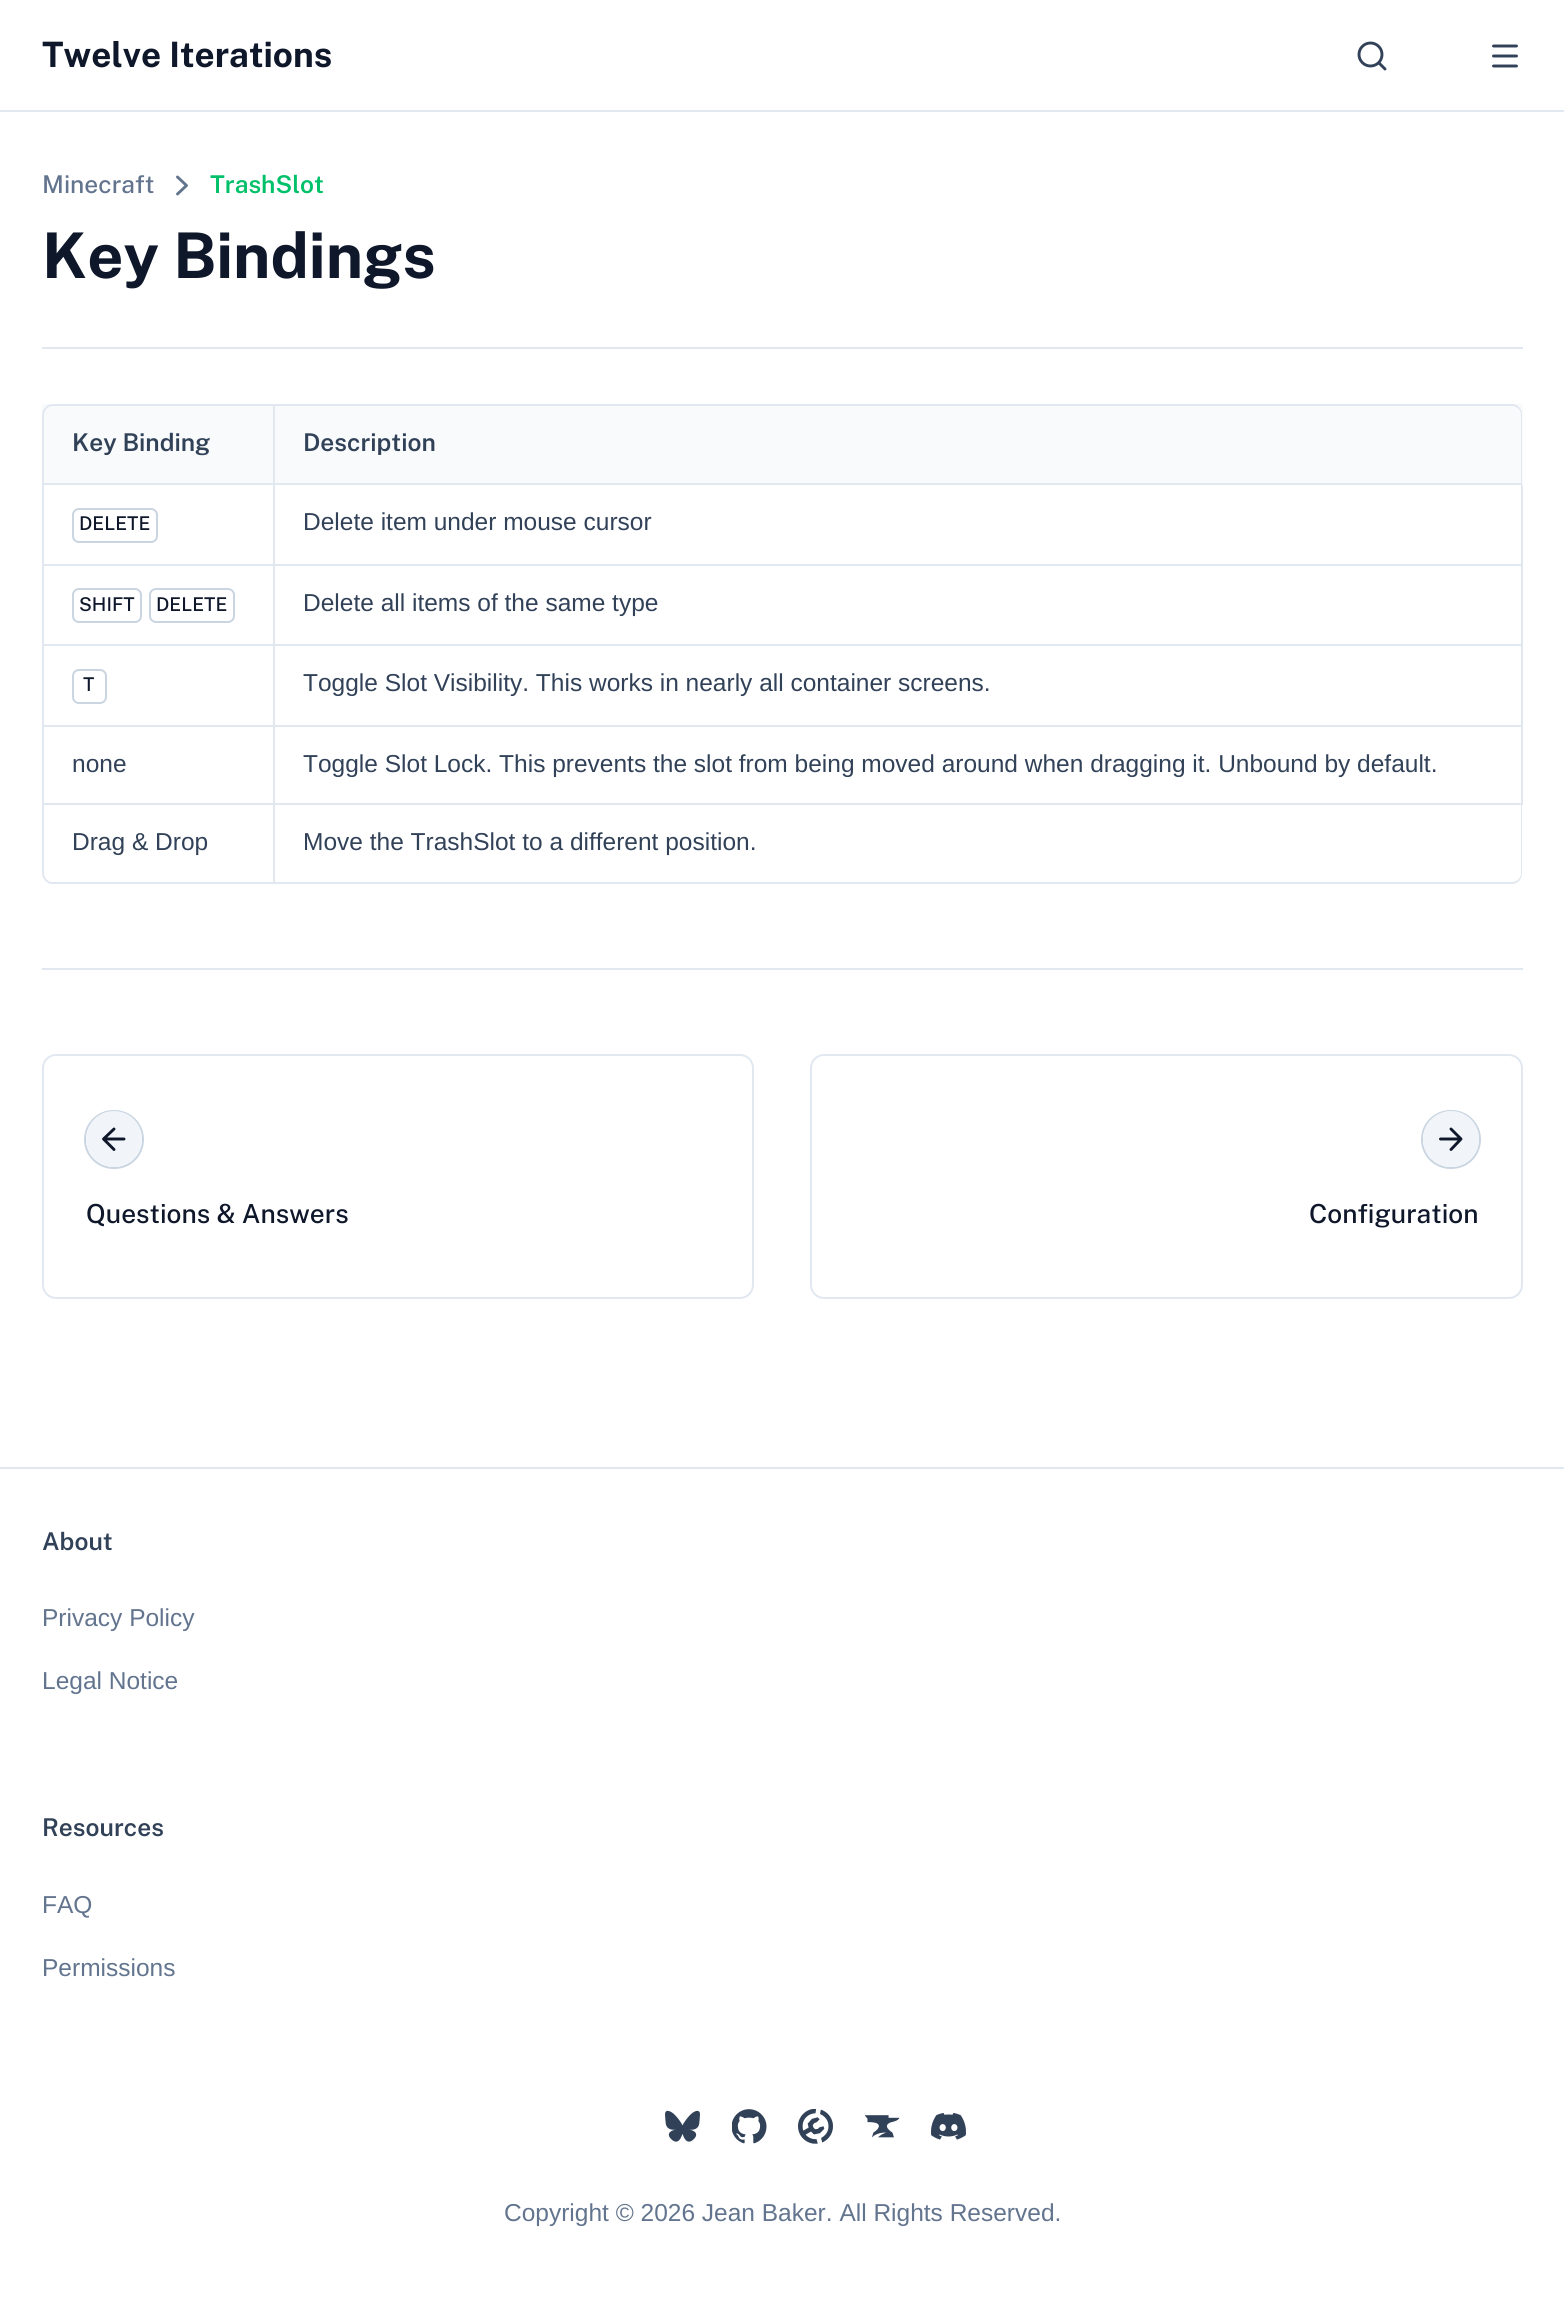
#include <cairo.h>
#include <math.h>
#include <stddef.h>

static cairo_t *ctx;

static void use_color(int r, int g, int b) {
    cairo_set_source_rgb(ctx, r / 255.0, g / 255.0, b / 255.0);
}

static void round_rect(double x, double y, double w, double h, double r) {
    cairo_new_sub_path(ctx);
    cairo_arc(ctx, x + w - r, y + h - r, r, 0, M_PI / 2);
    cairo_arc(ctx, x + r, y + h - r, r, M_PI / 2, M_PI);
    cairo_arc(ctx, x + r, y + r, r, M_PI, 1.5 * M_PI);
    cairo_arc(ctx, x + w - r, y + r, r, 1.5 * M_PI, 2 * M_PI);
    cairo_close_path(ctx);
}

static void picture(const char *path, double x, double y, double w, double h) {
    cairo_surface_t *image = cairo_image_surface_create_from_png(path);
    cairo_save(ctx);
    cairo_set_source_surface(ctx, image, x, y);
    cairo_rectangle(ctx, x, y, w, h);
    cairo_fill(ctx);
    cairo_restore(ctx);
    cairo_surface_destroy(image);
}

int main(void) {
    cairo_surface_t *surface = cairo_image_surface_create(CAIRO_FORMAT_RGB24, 1564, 2300);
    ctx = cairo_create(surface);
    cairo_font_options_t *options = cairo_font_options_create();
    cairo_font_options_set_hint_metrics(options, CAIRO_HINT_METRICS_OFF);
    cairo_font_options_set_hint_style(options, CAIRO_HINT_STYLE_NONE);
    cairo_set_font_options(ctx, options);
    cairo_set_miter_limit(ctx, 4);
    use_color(255, 255, 255);
    cairo_paint(ctx);
    use_color(226, 232, 240);
    cairo_rectangle(ctx, 0, 110, 1564, 2);
    cairo_fill(ctx);
    cairo_select_font_face(ctx, "Public Sans", CAIRO_FONT_SLANT_NORMAL, CAIRO_FONT_WEIGHT_BOLD);
    cairo_set_font_size(ctx, 35);
    use_color(15, 23, 43);
    cairo_move_to(ctx, 42, 67);
    cairo_show_text(ctx, "Twelve Iterations");
    cairo_new_path(ctx);
    cairo_move_to(ctx, 1385, 69);
    cairo_line_to(ctx, 1379, 63);
    use_color(49, 65, 88);
    cairo_set_line_width(ctx, 2.9);
    cairo_set_line_cap(ctx, CAIRO_LINE_CAP_ROUND);
    cairo_set_line_join(ctx, CAIRO_LINE_JOIN_ROUND);
    cairo_stroke(ctx);
    cairo_arc(ctx, 1370.5, 54.5, 11.5, 0, 2 * M_PI);
    cairo_set_line_cap(ctx, CAIRO_LINE_CAP_BUTT);
    cairo_set_line_join(ctx, CAIRO_LINE_JOIN_MITER);
    cairo_stroke(ctx);
    cairo_new_path(ctx);
    cairo_move_to(ctx, 1493.5, 46);
    cairo_line_to(ctx, 1516.5, 46);
    cairo_move_to(ctx, 1493.5, 56);
    cairo_line_to(ctx, 1516.5, 56);
    cairo_move_to(ctx, 1493.5, 66);
    cairo_line_to(ctx, 1516.5, 66);
    cairo_set_line_cap(ctx, CAIRO_LINE_CAP_ROUND);
    cairo_set_line_join(ctx, CAIRO_LINE_JOIN_ROUND);
    cairo_stroke(ctx);
    use_color(226, 232, 240);
    cairo_rectangle(ctx, 42, 347, 1481, 2);
    cairo_fill(ctx);
    cairo_select_font_face(ctx, "Public Sans Medium", CAIRO_FONT_SLANT_NORMAL, CAIRO_FONT_WEIGHT_NORMAL);
    cairo_set_font_size(ctx, 24.5);
    use_color(98, 116, 142);
    cairo_move_to(ctx, 42, 193);
    cairo_show_text(ctx, "Minecraft");
    cairo_new_path(ctx);
    cairo_move_to(ctx, 177.5, 194);
    cairo_line_to(ctx, 186.5, 185.5);
    cairo_line_to(ctx, 177.5, 177);
    cairo_stroke(ctx);
    cairo_select_font_face(ctx, "Public Sans SemiBold", CAIRO_FONT_SLANT_NORMAL, CAIRO_FONT_WEIGHT_NORMAL);
    use_color(0, 193, 106);
    cairo_move_to(ctx, 210, 193);
    cairo_show_text(ctx, "TrashSlot");
    cairo_select_font_face(ctx, "Public Sans", CAIRO_FONT_SLANT_NORMAL, CAIRO_FONT_WEIGHT_BOLD);
    cairo_set_font_size(ctx, 63);
    use_color(15, 23, 43);
    cairo_move_to(ctx, 42, 278);
    cairo_show_text(ctx, "Key Bindings");
    use_color(248, 250, 252);
    cairo_rectangle(ctx, 42, 404, 1481, 81);
    cairo_fill(ctx);
    cairo_new_path(ctx);
    cairo_move_to(ctx, 53, 405);
    cairo_line_to(ctx, 274, 405);
    cairo_line_to(ctx, 274, 484);
    cairo_line_to(ctx, 43, 484);
    cairo_line_to(ctx, 43, 415);
    cairo_curve_to(ctx, 43, 409.5, 47.5, 405, 53, 405);
    cairo_close_path(ctx);
    use_color(226, 232, 240);
    cairo_set_line_width(ctx, 2);
    cairo_set_line_cap(ctx, CAIRO_LINE_CAP_BUTT);
    cairo_set_line_join(ctx, CAIRO_LINE_JOIN_MITER);
    cairo_stroke(ctx);
    cairo_select_font_face(ctx, "Public Sans SemiBold", CAIRO_FONT_SLANT_NORMAL, CAIRO_FONT_WEIGHT_NORMAL);
    cairo_set_font_size(ctx, 24.5);
    use_color(49, 65, 88);
    cairo_move_to(ctx, 72, 451);
    cairo_show_text(ctx, "Key Binding");
    use_color(226, 232, 240);
    cairo_set_fill_rule(ctx, CAIRO_FILL_RULE_EVEN_ODD);
    cairo_new_path(ctx);
    cairo_move_to(ctx, 275, 404);
    cairo_line_to(ctx, 1512, 404);
    cairo_curve_to(ctx, 1518, 404, 1522, 409, 1522, 415);
    cairo_line_to(ctx, 1522, 485);
    cairo_line_to(ctx, 275, 485);
    cairo_close_path(ctx);
    cairo_move_to(ctx, 275, 406);
    cairo_line_to(ctx, 1512, 406);
    cairo_curve_to(ctx, 1517, 406, 1521, 410, 1521, 415);
    cairo_line_to(ctx, 1521, 483);
    cairo_line_to(ctx, 275, 483);
    cairo_close_path(ctx);
    cairo_fill(ctx);
    use_color(49, 65, 88);
    cairo_move_to(ctx, 303, 451);
    cairo_show_text(ctx, "Description");
    use_color(226, 232, 240);
    cairo_rectangle(ctx, 273, 485, 2, 80);
    cairo_fill(ctx);
    cairo_rectangle(ctx, 42, 564, 233, 2);
    cairo_fill(ctx);
    cairo_rectangle(ctx, 42, 485, 2, 80);
    cairo_fill(ctx);
    round_rect(73, 509, 84, 33, 6);
    use_color(202, 213, 226);
    cairo_stroke(ctx);
    cairo_select_font_face(ctx, "Public Sans Medium", CAIRO_FONT_SLANT_NORMAL, CAIRO_FONT_WEIGHT_NORMAL);
    cairo_set_font_size(ctx, 19);
    use_color(15, 23, 43);
    cairo_move_to(ctx, 79, 530);
    cairo_show_text(ctx, "DELETE");
    use_color(226, 232, 240);
    cairo_rectangle(ctx, 1521, 485, 2, 80);
    cairo_fill(ctx);
    cairo_rectangle(ctx, 275, 564, 1248, 2);
    cairo_fill(ctx);
    cairo_select_font_face(ctx, "Liberation Sans", CAIRO_FONT_SLANT_NORMAL, CAIRO_FONT_WEIGHT_NORMAL);
    cairo_set_font_size(ctx, 24.5);
    use_color(49, 65, 88);
    cairo_move_to(ctx, 303, 530);
    cairo_show_text(ctx, "Delete item under mouse cursor");
    use_color(226, 232, 240);
    cairo_rectangle(ctx, 273, 565, 2, 161);
    cairo_fill(ctx);
    cairo_rectangle(ctx, 42, 644, 233, 2);
    cairo_fill(ctx);
    cairo_rectangle(ctx, 42, 565, 2, 81);
    cairo_fill(ctx);
    round_rect(73, 589, 68, 33, 6);
    use_color(202, 213, 226);
    cairo_stroke(ctx);
    cairo_select_font_face(ctx, "Public Sans Medium", CAIRO_FONT_SLANT_NORMAL, CAIRO_FONT_WEIGHT_NORMAL);
    cairo_set_font_size(ctx, 19);
    use_color(15, 23, 43);
    cairo_move_to(ctx, 79, 611);
    cairo_show_text(ctx, "SHIFT");
    round_rect(150, 589, 84, 33, 6);
    use_color(202, 213, 226);
    cairo_stroke(ctx);
    use_color(15, 23, 43);
    cairo_move_to(ctx, 156, 611);
    cairo_show_text(ctx, "DELETE");
    use_color(226, 232, 240);
    cairo_rectangle(ctx, 1521, 565, 2, 161);
    cairo_fill(ctx);
    cairo_rectangle(ctx, 275, 644, 1248, 2);
    cairo_fill(ctx);
    cairo_select_font_face(ctx, "Liberation Sans", CAIRO_FONT_SLANT_NORMAL, CAIRO_FONT_WEIGHT_NORMAL);
    cairo_set_font_size(ctx, 24.5);
    use_color(49, 65, 88);
    cairo_move_to(ctx, 303, 611);
    cairo_show_text(ctx, "Delete all items of the same type");
    use_color(226, 232, 240);
    cairo_rectangle(ctx, 42, 725, 1481, 2);
    cairo_fill(ctx);
    cairo_rectangle(ctx, 42, 646, 2, 80);
    cairo_fill(ctx);
    round_rect(73, 670, 33, 33, 6);
    use_color(202, 213, 226);
    cairo_stroke(ctx);
    cairo_select_font_face(ctx, "Public Sans Medium", CAIRO_FONT_SLANT_NORMAL, CAIRO_FONT_WEIGHT_NORMAL);
    cairo_set_font_size(ctx, 19);
    use_color(15, 23, 43);
    cairo_move_to(ctx, 83, 691);
    cairo_show_text(ctx, "T");
    cairo_select_font_face(ctx, "Liberation Sans", CAIRO_FONT_SLANT_NORMAL, CAIRO_FONT_WEIGHT_NORMAL);
    cairo_set_font_size(ctx, 24.5);
    use_color(49, 65, 88);
    cairo_move_to(ctx, 303, 691);
    cairo_show_text(ctx, "Toggle Slot Visibility. This works in nearly all container screens.");
    use_color(226, 232, 240);
    cairo_rectangle(ctx, 273, 726, 2, 79);
    cairo_fill(ctx);
    cairo_rectangle(ctx, 42, 803, 233, 2);
    cairo_fill(ctx);
    cairo_rectangle(ctx, 42, 726, 2, 79);
    cairo_fill(ctx);
    use_color(49, 65, 88);
    cairo_move_to(ctx, 72, 772);
    cairo_show_text(ctx, "none");
    use_color(226, 232, 240);
    cairo_rectangle(ctx, 1521, 726, 2, 79);
    cairo_fill(ctx);
    cairo_rectangle(ctx, 275, 803, 1248, 2);
    cairo_fill(ctx);
    use_color(49, 65, 88);
    cairo_move_to(ctx, 303, 772);
    cairo_show_text(ctx, "Toggle Slot Lock. This prevents the slot from being moved around when dragging it. Unbound by default.");
    use_color(226, 232, 240);
    cairo_new_path(ctx);
    cairo_move_to(ctx, 42, 805);
    cairo_line_to(ctx, 275, 805);
    cairo_line_to(ctx, 275, 884);
    cairo_line_to(ctx, 52, 884);
    cairo_curve_to(ctx, 47, 884, 42, 879, 42, 873);
    cairo_close_path(ctx);
    cairo_move_to(ctx, 44, 805);
    cairo_line_to(ctx, 273, 805);
    cairo_line_to(ctx, 273, 882);
    cairo_line_to(ctx, 52, 882);
    cairo_curve_to(ctx, 48, 882, 44, 878, 44, 873);
    cairo_close_path(ctx);
    cairo_fill(ctx);
    use_color(49, 65, 88);
    cairo_move_to(ctx, 72, 850);
    cairo_show_text(ctx, "Drag & Drop");
    use_color(226, 232, 240);
    cairo_new_path(ctx);
    cairo_move_to(ctx, 275, 805);
    cairo_line_to(ctx, 1522, 805);
    cairo_line_to(ctx, 1522, 873);
    cairo_curve_to(ctx, 1522, 879, 1518, 884, 1512, 884);
    cairo_line_to(ctx, 275, 884);
    cairo_close_path(ctx);
    cairo_move_to(ctx, 275, 805);
    cairo_line_to(ctx, 1521, 805);
    cairo_line_to(ctx, 1521, 873);
    cairo_curve_to(ctx, 1521, 878, 1517, 882, 1512, 882);
    cairo_line_to(ctx, 275, 882);
    cairo_close_path(ctx);
    cairo_fill(ctx);
    use_color(49, 65, 88);
    cairo_move_to(ctx, 303, 850);
    cairo_show_text(ctx, "Move the TrashSlot to a different position.");
    use_color(226, 232, 240);
    cairo_rectangle(ctx, 42, 968, 1481, 2);
    cairo_fill(ctx);
    round_rect(43, 1055, 710, 243, 13);
    cairo_stroke(ctx);
    round_rect(85, 1111, 58, 57, 28.5);
    use_color(202, 213, 226);
    cairo_stroke(ctx);
    use_color(241, 245, 249);
    cairo_arc(ctx, 114, 1139, 28, 0, 2 * M_PI);
    cairo_fill(ctx);
    cairo_new_path(ctx);
    cairo_move_to(ctx, 114, 1149.5);
    cairo_line_to(ctx, 103.5, 1139);
    cairo_line_to(ctx, 114, 1129);
    cairo_move_to(ctx, 124, 1139);
    cairo_line_to(ctx, 103.5, 1139);
    use_color(15, 23, 43);
    cairo_set_line_width(ctx, 2.9);
    cairo_set_line_cap(ctx, CAIRO_LINE_CAP_ROUND);
    cairo_set_line_join(ctx, CAIRO_LINE_JOIN_ROUND);
    cairo_stroke(ctx);
    cairo_select_font_face(ctx, "Public Sans Medium", CAIRO_FONT_SLANT_NORMAL, CAIRO_FONT_WEIGHT_NORMAL);
    cairo_set_font_size(ctx, 26.25);
    cairo_move_to(ctx, 86, 1223);
    cairo_show_text(ctx, "Questions & Answers");
    round_rect(811, 1055, 711, 243, 13);
    use_color(226, 232, 240);
    cairo_set_line_width(ctx, 2);
    cairo_set_line_cap(ctx, CAIRO_LINE_CAP_BUTT);
    cairo_set_line_join(ctx, CAIRO_LINE_JOIN_MITER);
    cairo_stroke(ctx);
    round_rect(1422, 1111, 58, 57, 28.5);
    use_color(202, 213, 226);
    cairo_stroke(ctx);
    use_color(241, 245, 249);
    cairo_arc(ctx, 1451, 1139, 28, 0, 2 * M_PI);
    cairo_fill(ctx);
    cairo_new_path(ctx);
    cairo_move_to(ctx, 1440.5, 1139);
    cairo_line_to(ctx, 1461, 1139);
    cairo_move_to(ctx, 1451, 1129);
    cairo_line_to(ctx, 1461, 1139);
    cairo_line_to(ctx, 1451, 1149.5);
    use_color(15, 23, 43);
    cairo_set_line_width(ctx, 2.9);
    cairo_set_line_cap(ctx, CAIRO_LINE_CAP_ROUND);
    cairo_set_line_join(ctx, CAIRO_LINE_JOIN_ROUND);
    cairo_stroke(ctx);
    cairo_move_to(ctx, 1309, 1223);
    cairo_show_text(ctx, "Configuration");
    use_color(226, 232, 240);
    cairo_rectangle(ctx, 0, 1467, 1564, 2);
    cairo_fill(ctx);
    cairo_select_font_face(ctx, "Public Sans SemiBold", CAIRO_FONT_SLANT_NORMAL, CAIRO_FONT_WEIGHT_NORMAL);
    cairo_set_font_size(ctx, 24.5);
    use_color(49, 65, 88);
    cairo_move_to(ctx, 42, 1550);
    cairo_show_text(ctx, "About");
    cairo_select_font_face(ctx, "Liberation Sans", CAIRO_FONT_SLANT_NORMAL, CAIRO_FONT_WEIGHT_NORMAL);
    use_color(98, 116, 142);
    cairo_move_to(ctx, 42, 1626);
    cairo_show_text(ctx, "Privacy Policy");
    cairo_move_to(ctx, 42, 1689);
    cairo_show_text(ctx, "Legal Notice");
    cairo_select_font_face(ctx, "Public Sans SemiBold", CAIRO_FONT_SLANT_NORMAL, CAIRO_FONT_WEIGHT_NORMAL);
    use_color(49, 65, 88);
    cairo_move_to(ctx, 42, 1836);
    cairo_show_text(ctx, "Resources");
    cairo_select_font_face(ctx, "Liberation Sans", CAIRO_FONT_SLANT_NORMAL, CAIRO_FONT_WEIGHT_NORMAL);
    use_color(98, 116, 142);
    cairo_move_to(ctx, 42, 1913);
    cairo_show_text(ctx, "FAQ");
    cairo_move_to(ctx, 42, 1976);
    cairo_show_text(ctx, "Permissions");
    picture("img1.png", 665, 2110, 35, 32);
    picture("img2.png", 732, 2109, 35, 35);
    picture("img3.png", 798, 2109, 35, 35);
    picture("img4.png", 865, 2115, 35, 23);
    picture("img5.png", 931, 2112, 35, 28);
    cairo_move_to(ctx, 504, 2221);
    cairo_show_text(ctx, "Copyright © 2026 Jean Baker. All Rights Reserved.");
    cairo_surface_write_to_png(surface, "result.png");
    cairo_font_options_destroy(options);
    cairo_destroy(ctx);
    cairo_surface_destroy(surface);
    return 0;
}
